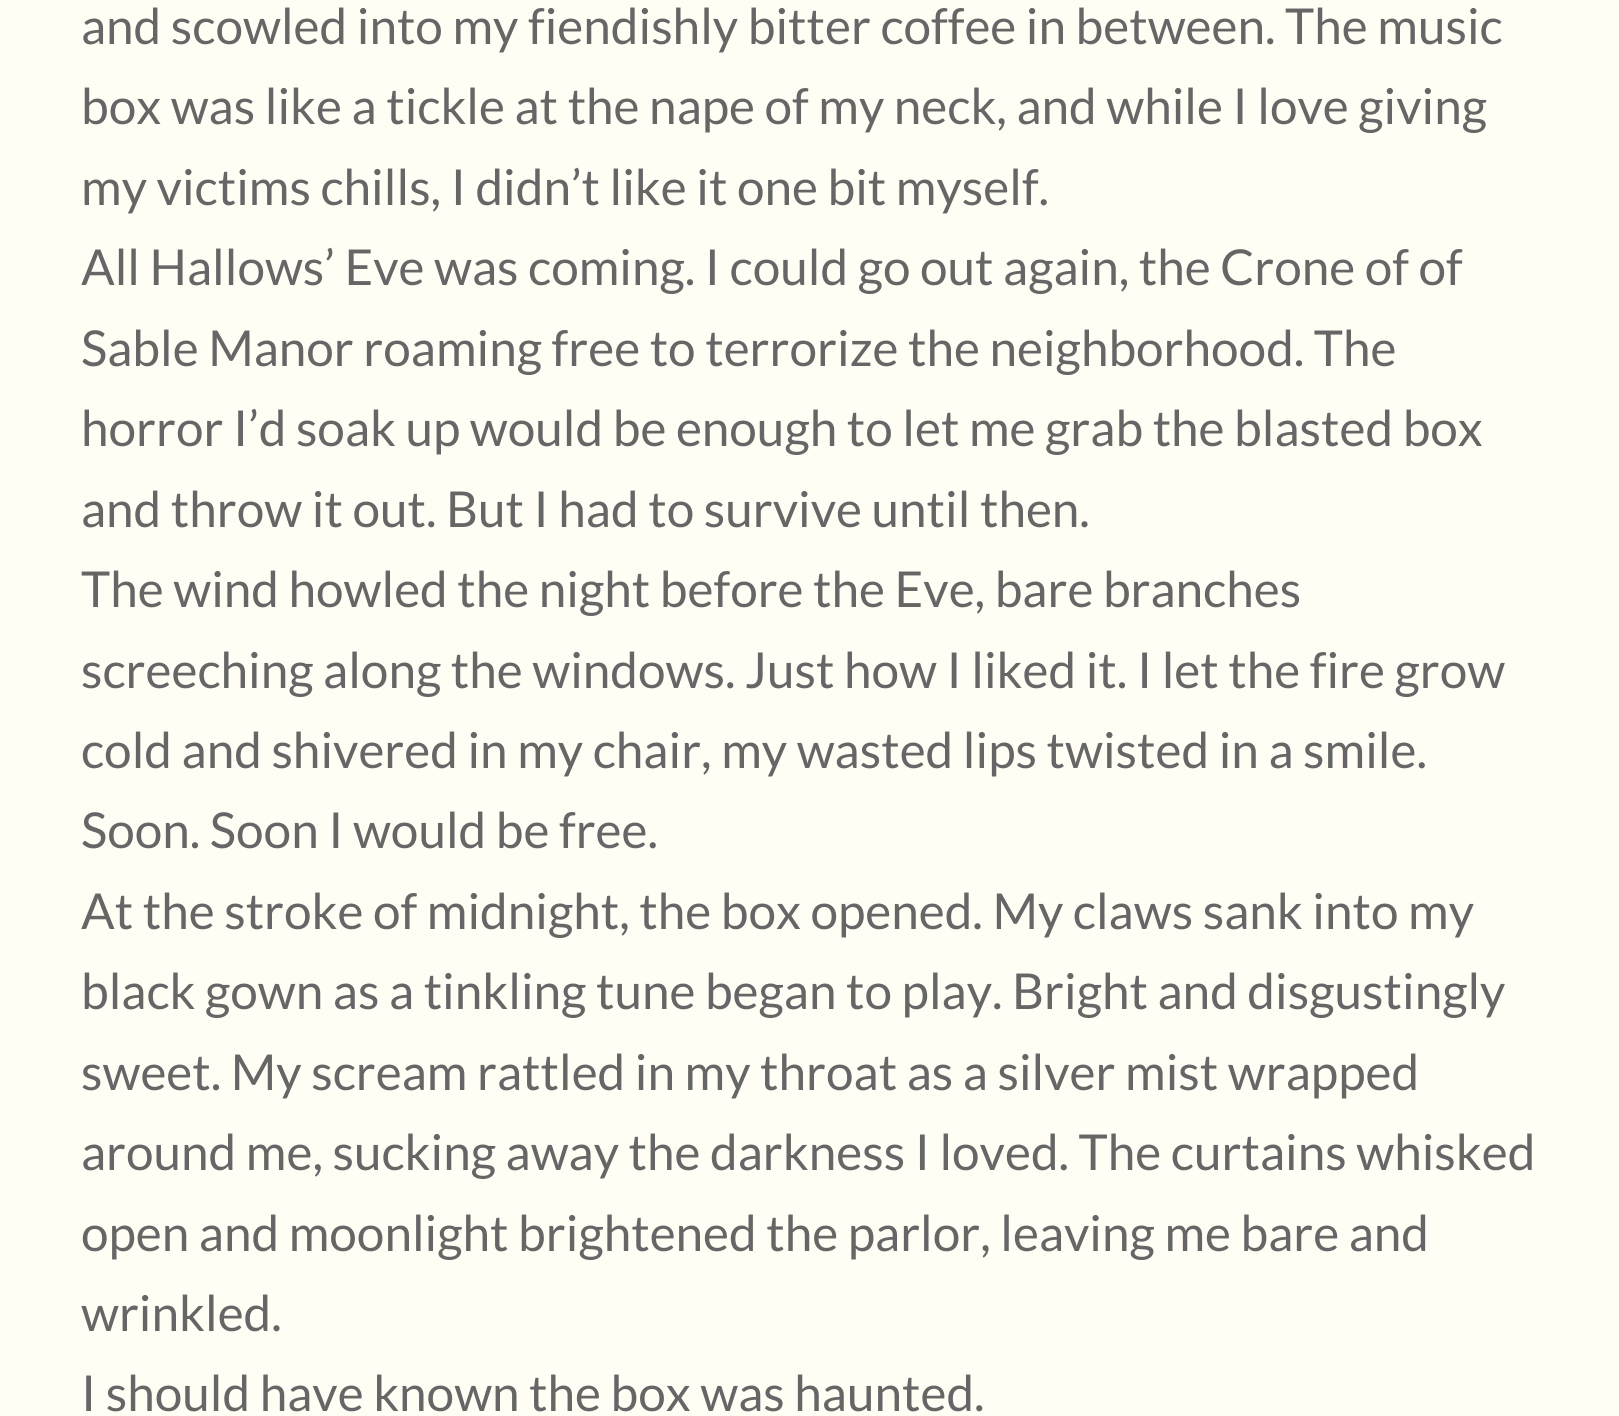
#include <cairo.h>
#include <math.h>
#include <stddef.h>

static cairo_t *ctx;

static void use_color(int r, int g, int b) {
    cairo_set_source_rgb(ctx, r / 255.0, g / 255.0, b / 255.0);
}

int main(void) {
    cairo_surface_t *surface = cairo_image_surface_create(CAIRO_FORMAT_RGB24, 1619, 1416);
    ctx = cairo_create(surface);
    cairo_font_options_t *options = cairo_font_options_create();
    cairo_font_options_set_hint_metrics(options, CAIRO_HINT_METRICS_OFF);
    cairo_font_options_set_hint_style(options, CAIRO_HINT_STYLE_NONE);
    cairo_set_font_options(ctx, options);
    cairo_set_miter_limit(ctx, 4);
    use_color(255, 253, 244);
    cairo_paint(ctx);
    cairo_select_font_face(ctx, "Lato", CAIRO_FONT_SLANT_NORMAL, CAIRO_FONT_WEIGHT_NORMAL);
    cairo_set_font_size(ctx, 49.5);
    use_color(102, 102, 102);
    cairo_move_to(ctx, 81, 44);
    cairo_show_text(ctx, "and scowled into my fiendishly bitter coffee in between. The music");
    cairo_move_to(ctx, 81, 124);
    cairo_show_text(ctx, "box was like a tickle at the nape of my neck, and while I love giving");
    cairo_move_to(ctx, 81, 205);
    cairo_show_text(ctx, "my victims chills, I didn’t like it one bit myself.");
    cairo_move_to(ctx, 81, 285);
    cairo_show_text(ctx, "All Hallows’ Eve was coming. I could go out again, the Crone of of");
    cairo_move_to(ctx, 81, 366);
    cairo_show_text(ctx, "Sable Manor roaming free to terrorize the neighborhood. The");
    cairo_move_to(ctx, 81, 446);
    cairo_show_text(ctx, "horror I’d soak up would be enough to let me grab the blasted box");
    cairo_move_to(ctx, 81, 527);
    cairo_show_text(ctx, "and throw it out. But I had to survive until then.");
    cairo_move_to(ctx, 81, 607);
    cairo_show_text(ctx, "The wind howled the night before the Eve, bare branches");
    cairo_move_to(ctx, 81, 688);
    cairo_show_text(ctx, "screeching along the windows. Just how I liked it. I let the fire grow");
    cairo_move_to(ctx, 81, 768);
    cairo_show_text(ctx, "cold and shivered in my chair, my wasted lips twisted in a smile.");
    cairo_move_to(ctx, 81, 848);
    cairo_show_text(ctx, "Soon. Soon I would be free.");
    cairo_move_to(ctx, 81, 929);
    cairo_show_text(ctx, "At the stroke of midnight, the box opened. My claws sank into my");
    cairo_move_to(ctx, 81, 1009);
    cairo_show_text(ctx, "black gown as a tinkling tune began to play. Bright and disgustingly");
    cairo_move_to(ctx, 81, 1090);
    cairo_show_text(ctx, "sweet. My scream rattled in my throat as a silver mist wrapped");
    cairo_move_to(ctx, 81, 1170);
    cairo_show_text(ctx, "around me, sucking away the darkness I loved. The curtains whisked");
    cairo_move_to(ctx, 81, 1251);
    cairo_show_text(ctx, "open and moonlight brightened the parlor, leaving me bare and");
    cairo_move_to(ctx, 81, 1331);
    cairo_show_text(ctx, "wrinkled.");
    cairo_move_to(ctx, 81, 1411);
    cairo_show_text(ctx, "I should have known the box was haunted.");
    cairo_surface_write_to_png(surface, "result.png");
    cairo_font_options_destroy(options);
    cairo_destroy(ctx);
    cairo_surface_destroy(surface);
    return 0;
}
